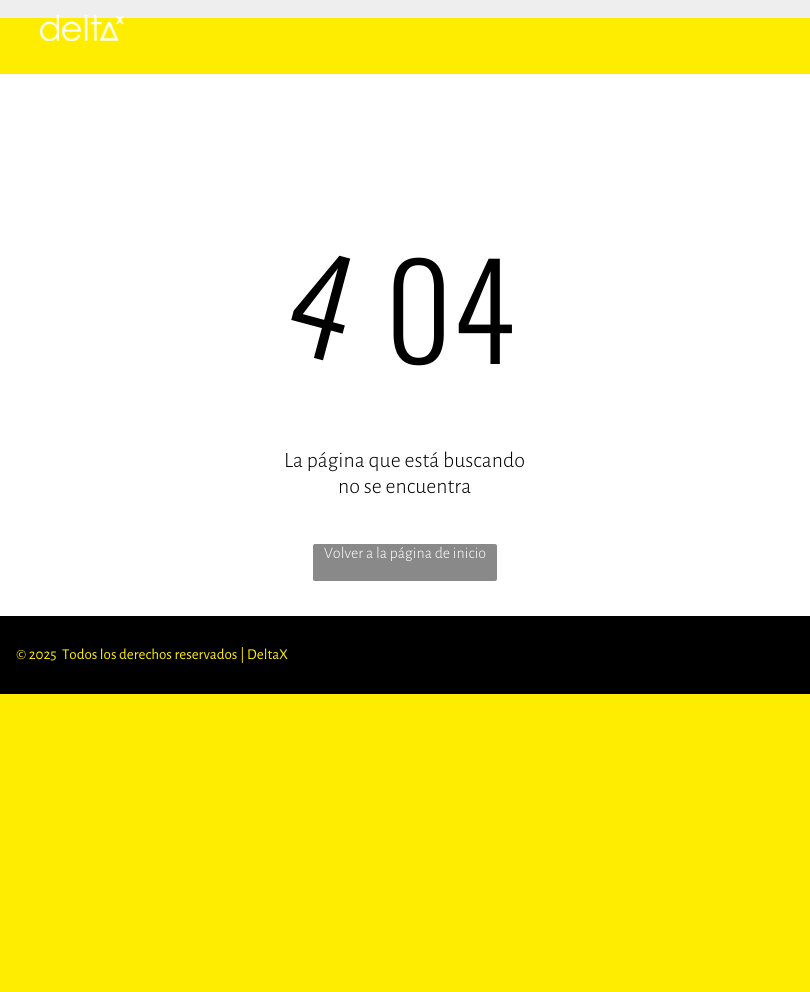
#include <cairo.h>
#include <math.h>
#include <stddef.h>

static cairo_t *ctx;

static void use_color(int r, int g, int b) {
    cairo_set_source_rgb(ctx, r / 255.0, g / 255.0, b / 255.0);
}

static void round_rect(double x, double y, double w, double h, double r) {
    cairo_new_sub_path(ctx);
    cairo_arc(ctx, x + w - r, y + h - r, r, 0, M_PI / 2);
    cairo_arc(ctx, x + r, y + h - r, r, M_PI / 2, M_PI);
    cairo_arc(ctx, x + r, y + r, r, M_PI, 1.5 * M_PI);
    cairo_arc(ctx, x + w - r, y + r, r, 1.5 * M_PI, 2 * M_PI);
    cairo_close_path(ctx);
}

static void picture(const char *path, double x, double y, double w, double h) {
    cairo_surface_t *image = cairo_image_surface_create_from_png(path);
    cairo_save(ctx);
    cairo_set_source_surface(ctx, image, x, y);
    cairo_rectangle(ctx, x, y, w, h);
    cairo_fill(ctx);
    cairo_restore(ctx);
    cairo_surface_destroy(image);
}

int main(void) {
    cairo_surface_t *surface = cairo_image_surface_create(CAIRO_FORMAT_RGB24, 810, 992);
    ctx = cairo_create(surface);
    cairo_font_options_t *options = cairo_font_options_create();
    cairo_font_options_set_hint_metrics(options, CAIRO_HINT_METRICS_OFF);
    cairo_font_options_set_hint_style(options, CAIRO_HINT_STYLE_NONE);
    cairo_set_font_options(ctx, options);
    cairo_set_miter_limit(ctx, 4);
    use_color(238, 238, 238);
    cairo_paint(ctx);
    use_color(255, 237, 0);
    cairo_rectangle(ctx, 0, 18, 810, 974);
    cairo_fill(ctx);
    picture("img1.png", 40, 15, 84, 26);
    use_color(255, 255, 255);
    cairo_rectangle(ctx, 0, 74, 810, 542);
    cairo_fill(ctx);
    cairo_select_font_face(ctx, "Oswald Light", CAIRO_FONT_SLANT_NORMAL, CAIRO_FONT_WEIGHT_NORMAL);
    cairo_set_font_size(ctx, 130);
    use_color(0, 0, 0);
    cairo_save(ctx);
    cairo_translate(ctx, 277, 348);
    cairo_rotate(ctx, 15 * M_PI / 180);
    cairo_move_to(ctx, 0, 0);
    cairo_show_text(ctx, "4");
    cairo_restore(ctx);
    cairo_move_to(ctx, 385, 364);
    cairo_show_text(ctx, "04");
    cairo_select_font_face(ctx, "Alegreya Sans Light", CAIRO_FONT_SLANT_NORMAL, CAIRO_FONT_WEIGHT_NORMAL);
    cairo_set_font_size(ctx, 22);
    cairo_move_to(ctx, 284, 467);
    cairo_show_text(ctx, "La página que está buscando");
    cairo_move_to(ctx, 338, 493);
    cairo_show_text(ctx, "no se encuentra");
    use_color(137, 137, 137);
    round_rect(313, 544, 184, 37, 2);
    cairo_fill(ctx);
    cairo_set_font_size(ctx, 16);
    use_color(255, 255, 255);
    cairo_move_to(ctx, 324, 558);
    cairo_show_text(ctx, "Volver a la página de inicio");
    use_color(0, 0, 0);
    cairo_rectangle(ctx, 0, 616, 810, 78);
    cairo_fill(ctx);
    cairo_select_font_face(ctx, "Alegreya Sans", CAIRO_FONT_SLANT_NORMAL, CAIRO_FONT_WEIGHT_NORMAL);
    cairo_set_font_size(ctx, 15);
    use_color(255, 237, 0);
    cairo_move_to(ctx, 16, 659);
    cairo_show_text(ctx, "© 2025");
    cairo_move_to(ctx, 62, 659);
    cairo_show_text(ctx, "Todos los derechos reservados | DeltaX");
    cairo_surface_write_to_png(surface, "result.png");
    cairo_font_options_destroy(options);
    cairo_destroy(ctx);
    cairo_surface_destroy(surface);
    return 0;
}
